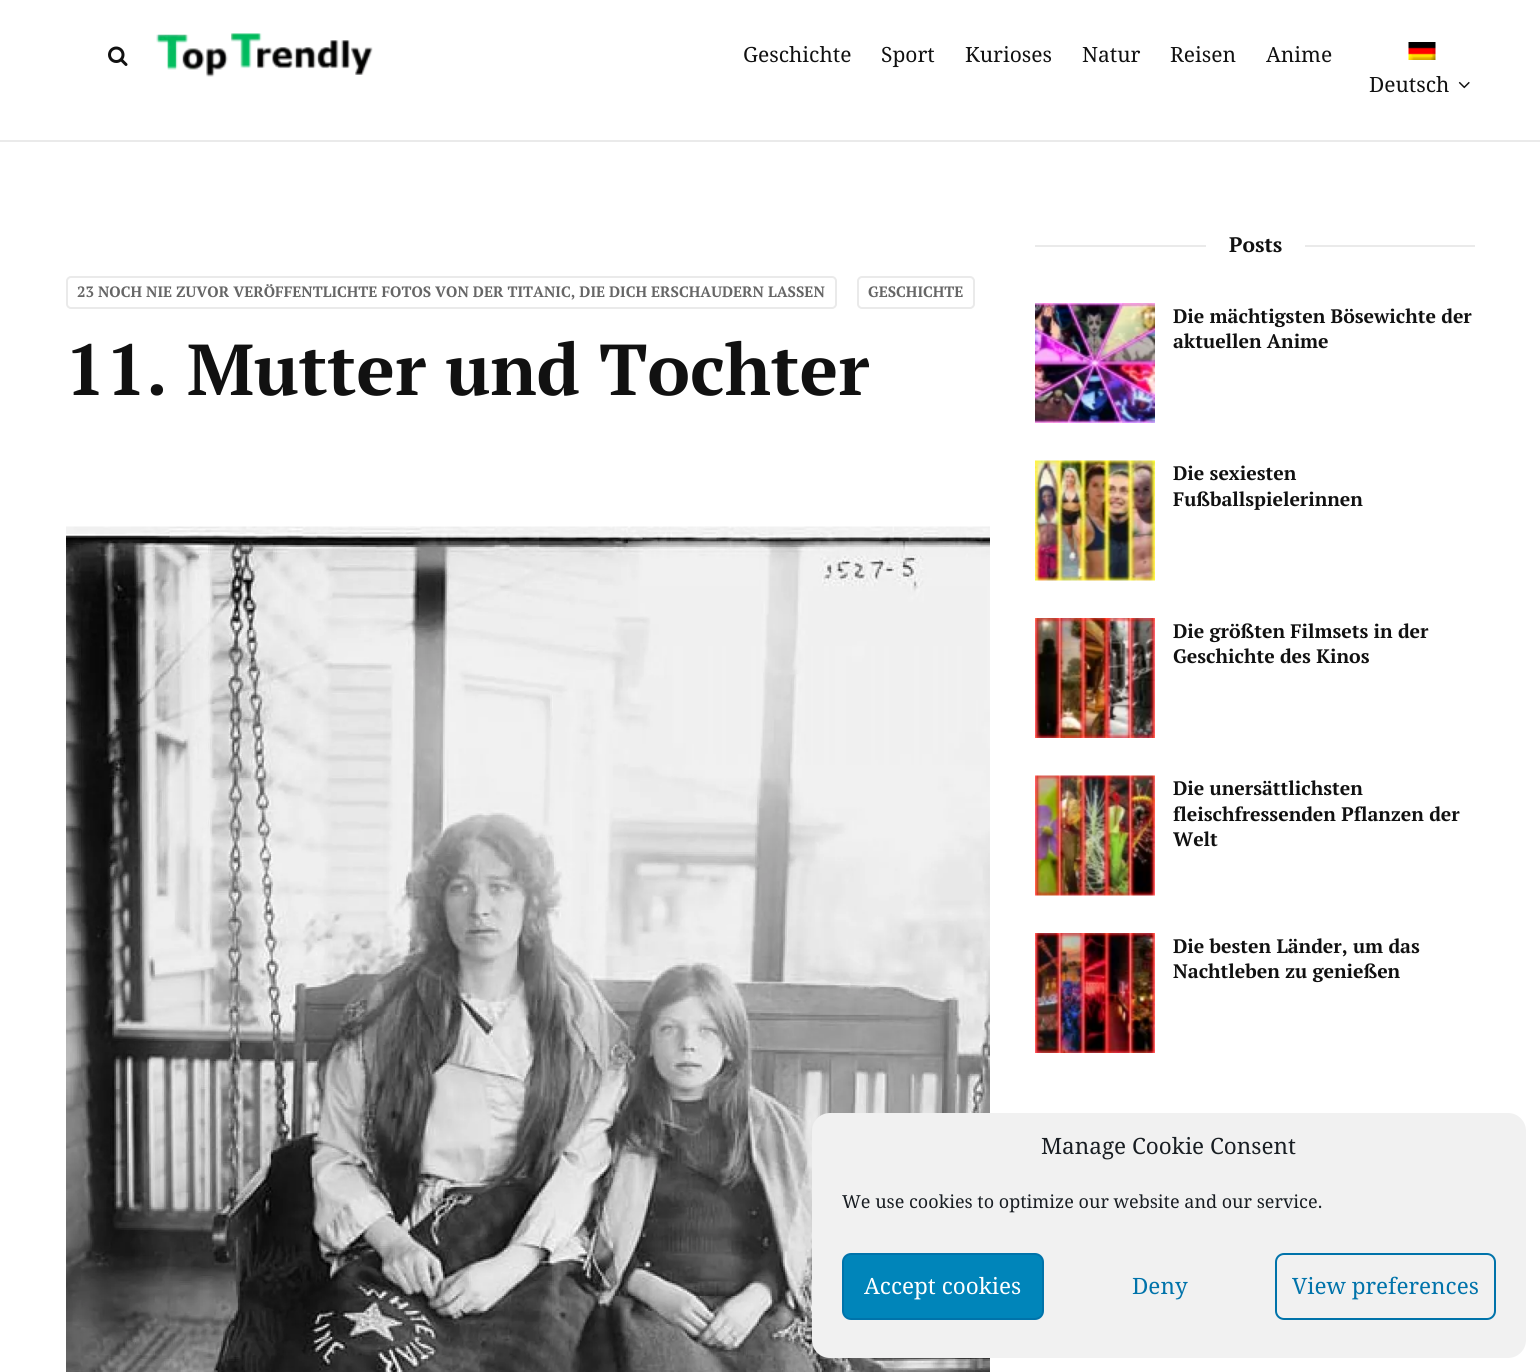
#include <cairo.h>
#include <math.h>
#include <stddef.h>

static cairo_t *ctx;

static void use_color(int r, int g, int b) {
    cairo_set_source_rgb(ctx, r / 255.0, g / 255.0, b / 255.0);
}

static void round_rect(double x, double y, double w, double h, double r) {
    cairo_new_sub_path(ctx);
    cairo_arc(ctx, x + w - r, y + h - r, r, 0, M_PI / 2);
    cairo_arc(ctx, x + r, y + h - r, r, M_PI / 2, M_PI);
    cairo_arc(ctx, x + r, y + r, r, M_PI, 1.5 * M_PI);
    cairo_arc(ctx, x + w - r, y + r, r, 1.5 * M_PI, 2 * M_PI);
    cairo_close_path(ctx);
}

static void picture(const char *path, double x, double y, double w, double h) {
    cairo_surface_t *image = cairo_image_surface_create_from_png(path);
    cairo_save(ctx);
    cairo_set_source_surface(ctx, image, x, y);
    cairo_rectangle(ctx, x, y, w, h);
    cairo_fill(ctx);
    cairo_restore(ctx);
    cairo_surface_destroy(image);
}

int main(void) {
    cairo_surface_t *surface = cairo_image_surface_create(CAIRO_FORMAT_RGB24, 1540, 1372);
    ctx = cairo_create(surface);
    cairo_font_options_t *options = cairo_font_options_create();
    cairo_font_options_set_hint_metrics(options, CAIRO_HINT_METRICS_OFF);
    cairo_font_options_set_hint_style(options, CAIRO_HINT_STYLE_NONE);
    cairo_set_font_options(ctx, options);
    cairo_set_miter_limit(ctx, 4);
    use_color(255, 255, 255);
    cairo_paint(ctx);
    use_color(234, 234, 234);
    cairo_rectangle(ctx, 0, 140, 1540, 2);
    cairo_fill(ctx);
    picture("img1.png", 108, 46, 20, 20);
    picture("img2.png", 156, 33, 217, 44);
    cairo_select_font_face(ctx, "Droid Serif", CAIRO_FONT_SLANT_NORMAL, CAIRO_FONT_WEIGHT_NORMAL);
    cairo_set_font_size(ctx, 21);
    use_color(17, 17, 17);
    cairo_move_to(ctx, 743, 62);
    cairo_show_text(ctx, "Geschichte");
    cairo_move_to(ctx, 881, 62);
    cairo_show_text(ctx, "Sport");
    cairo_move_to(ctx, 965, 62);
    cairo_show_text(ctx, "Kurioses");
    cairo_move_to(ctx, 1082, 62);
    cairo_show_text(ctx, "Natur");
    cairo_move_to(ctx, 1170, 62);
    cairo_show_text(ctx, "Reisen");
    cairo_move_to(ctx, 1266, 62);
    cairo_show_text(ctx, "Anime");
    picture("img3.png", 1408, 42, 28, 18);
    cairo_move_to(ctx, 1369, 92);
    cairo_show_text(ctx, "Deutsch");
    picture("img4.png", 1458, 81, 12, 8);
    round_rect(67, 277, 769, 31, 4);
    use_color(234, 234, 234);
    cairo_stroke(ctx);
    cairo_select_font_face(ctx, "PT Serif", CAIRO_FONT_SLANT_NORMAL, CAIRO_FONT_WEIGHT_BOLD);
    cairo_set_font_size(ctx, 15);
    use_color(102, 102, 102);
    cairo_move_to(ctx, 77, 297);
    cairo_show_text(ctx, "23 NOCH NIE ZUVOR VERÖFFENTLICHTE FOTOS VON DER TITANIC, DIE DICH ERSCHAUDERN LASSEN");
    round_rect(858, 277, 116, 31, 4);
    use_color(234, 234, 234);
    cairo_stroke(ctx);
    use_color(102, 102, 102);
    cairo_move_to(ctx, 868, 297);
    cairo_show_text(ctx, "GESCHICHTE");
    cairo_set_font_size(ctx, 72);
    use_color(17, 17, 17);
    cairo_move_to(ctx, 65, 395);
    cairo_show_text(ctx, "11. Mutter und Tochter");
    picture("img5.png", 66, 526, 924, 846);
    use_color(234, 234, 234);
    cairo_rectangle(ctx, 1035, 245, 171, 2);
    cairo_fill(ctx);
    cairo_set_font_size(ctx, 21);
    use_color(17, 17, 17);
    cairo_move_to(ctx, 1229, 252);
    cairo_show_text(ctx, "Posts");
    use_color(234, 234, 234);
    cairo_rectangle(ctx, 1305, 245, 170, 2);
    cairo_fill(ctx);
    picture("img6.png", 1035, 303, 120, 120);
    cairo_set_font_size(ctx, 19.5);
    use_color(17, 17, 17);
    cairo_move_to(ctx, 1173, 323);
    cairo_show_text(ctx, "Die mächtigsten Bösewichte der");
    cairo_move_to(ctx, 1173, 348);
    cairo_show_text(ctx, "aktuellen Anime");
    picture("img7.png", 1035, 460, 120, 121);
    cairo_move_to(ctx, 1173, 480);
    cairo_show_text(ctx, "Die sexiesten");
    cairo_move_to(ctx, 1173, 506);
    cairo_show_text(ctx, "Fußballspielerinnen");
    picture("img8.png", 1035, 618, 120, 120);
    cairo_move_to(ctx, 1173, 638);
    cairo_show_text(ctx, "Die größten Filmsets in der");
    cairo_move_to(ctx, 1173, 663);
    cairo_show_text(ctx, "Geschichte des Kinos");
    picture("img9.png", 1035, 775, 120, 121);
    cairo_move_to(ctx, 1173, 795);
    cairo_show_text(ctx, "Die unersättlichsten");
    cairo_move_to(ctx, 1173, 821);
    cairo_show_text(ctx, "fleischfressenden Pflanzen der");
    cairo_move_to(ctx, 1173, 846);
    cairo_show_text(ctx, "Welt");
    picture("img10.png", 1035, 933, 120, 120);
    cairo_move_to(ctx, 1173, 953);
    cairo_show_text(ctx, "Die besten Länder, um das");
    cairo_move_to(ctx, 1173, 978);
    cairo_show_text(ctx, "Nachtleben zu genießen");
    use_color(241, 241, 241);
    round_rect(812, 1113, 714, 245, 18);
    cairo_fill(ctx);
    cairo_select_font_face(ctx, "Droid Serif", CAIRO_FONT_SLANT_NORMAL, CAIRO_FONT_WEIGHT_NORMAL);
    cairo_set_font_size(ctx, 22.5);
    use_color(25, 30, 35);
    cairo_move_to(ctx, 1041, 1154);
    cairo_show_text(ctx, "Manage Cookie Consent");
    cairo_set_font_size(ctx, 18);
    cairo_move_to(ctx, 842, 1208);
    cairo_show_text(ctx, "We use cookies to optimize our website and our service.");
    use_color(0, 133, 186);
    round_rect(843, 1254, 200, 65, 8);
    cairo_fill_preserve(ctx);
    use_color(0, 115, 170);
    cairo_stroke(ctx);
    cairo_set_font_size(ctx, 22.5);
    use_color(255, 255, 255);
    cairo_move_to(ctx, 864, 1294);
    cairo_show_text(ctx, "Accept cookies");
    use_color(0, 115, 170);
    cairo_move_to(ctx, 1132, 1294);
    cairo_show_text(ctx, "Deny");
    round_rect(1276, 1254, 219, 65, 8);
    cairo_stroke(ctx);
    cairo_move_to(ctx, 1292, 1294);
    cairo_show_text(ctx, "View preferences");
    cairo_surface_write_to_png(surface, "result.png");
    cairo_font_options_destroy(options);
    cairo_destroy(ctx);
    cairo_surface_destroy(surface);
    return 0;
}
